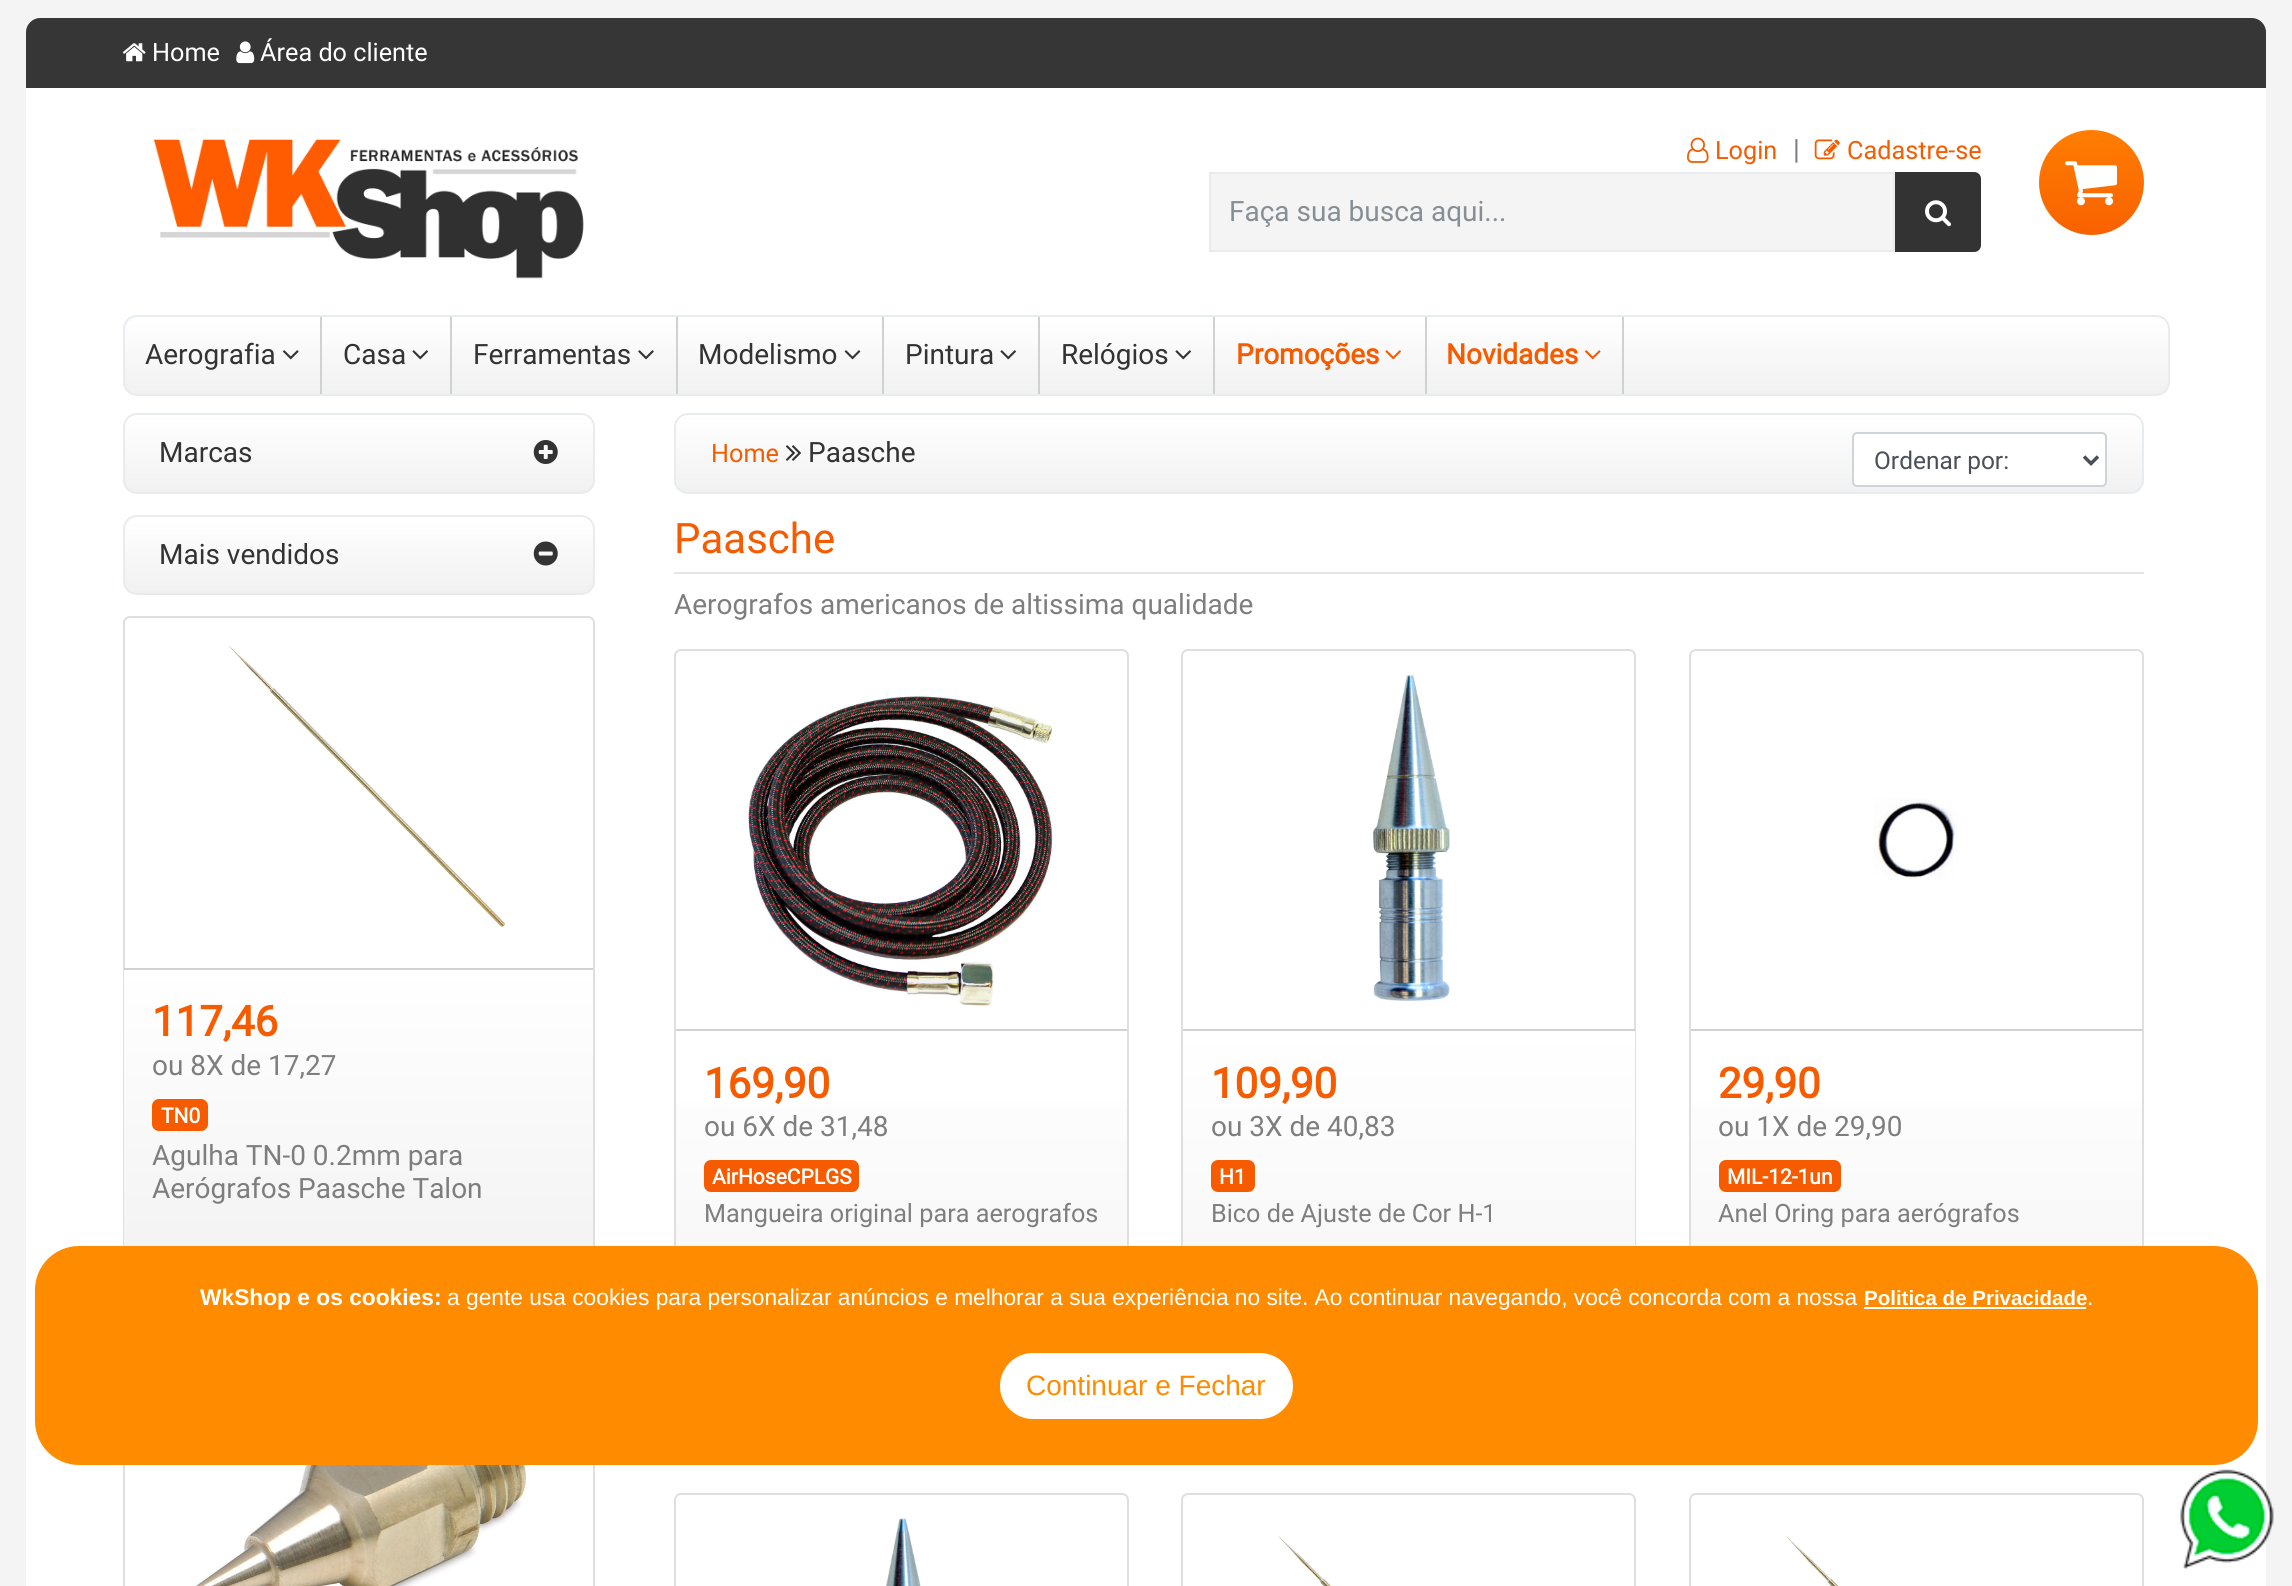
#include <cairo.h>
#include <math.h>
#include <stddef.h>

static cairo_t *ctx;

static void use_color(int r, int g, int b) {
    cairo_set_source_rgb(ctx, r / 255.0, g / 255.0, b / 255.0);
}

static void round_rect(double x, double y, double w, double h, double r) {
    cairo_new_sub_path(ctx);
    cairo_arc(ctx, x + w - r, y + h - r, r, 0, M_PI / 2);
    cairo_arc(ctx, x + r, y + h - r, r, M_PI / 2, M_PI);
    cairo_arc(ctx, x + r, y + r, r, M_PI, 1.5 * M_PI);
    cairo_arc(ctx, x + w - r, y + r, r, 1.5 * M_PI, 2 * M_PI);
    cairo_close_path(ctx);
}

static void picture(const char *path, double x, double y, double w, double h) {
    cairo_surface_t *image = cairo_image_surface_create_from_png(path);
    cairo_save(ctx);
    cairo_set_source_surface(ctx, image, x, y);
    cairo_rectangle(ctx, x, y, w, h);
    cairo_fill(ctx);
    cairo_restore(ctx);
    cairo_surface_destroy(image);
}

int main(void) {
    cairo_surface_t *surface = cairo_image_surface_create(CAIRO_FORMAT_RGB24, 2292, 1586);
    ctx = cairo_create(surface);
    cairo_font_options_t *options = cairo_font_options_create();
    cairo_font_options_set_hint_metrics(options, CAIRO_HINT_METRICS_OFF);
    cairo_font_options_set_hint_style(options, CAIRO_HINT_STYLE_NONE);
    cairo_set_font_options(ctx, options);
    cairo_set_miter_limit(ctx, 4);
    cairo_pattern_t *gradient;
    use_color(244, 244, 244);
    cairo_paint(ctx);
    use_color(255, 255, 255);
    round_rect(26, 18, 2240, 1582, 14);
    cairo_fill(ctx);
    use_color(54, 54, 54);
    cairo_new_path(ctx);
    cairo_move_to(ctx, 40, 18);
    cairo_line_to(ctx, 2252, 18);
    cairo_curve_to(ctx, 2259.5, 18, 2266, 24.5, 2266, 32);
    cairo_line_to(ctx, 2266, 88);
    cairo_line_to(ctx, 26, 88);
    cairo_line_to(ctx, 26, 32);
    cairo_curve_to(ctx, 26, 24.5, 32.5, 18, 40, 18);
    cairo_close_path(ctx);
    cairo_fill(ctx);
    picture("img1.png", 122, 43, 24, 19);
    cairo_select_font_face(ctx, "Roboto", CAIRO_FONT_SLANT_NORMAL, CAIRO_FONT_WEIGHT_NORMAL);
    cairo_set_font_size(ctx, 25.25);
    use_color(255, 255, 255);
    cairo_move_to(ctx, 152, 61);
    cairo_show_text(ctx, "Home");
    picture("img2.png", 236, 41, 19, 23);
    cairo_move_to(ctx, 260, 61);
    cairo_show_text(ctx, "Área do cliente");
    picture("img3.png", 154, 139, 430, 140);
    picture("img4.png", 1687, 137, 22, 26);
    use_color(246, 91, 0);
    cairo_move_to(ctx, 1715, 159);
    cairo_show_text(ctx, "Login");
    cairo_set_font_size(ctx, 28);
    use_color(126, 126, 126);
    cairo_move_to(ctx, 1793, 159);
    cairo_show_text(ctx, "|");
    picture("img5.png", 1814, 139, 26, 21);
    cairo_set_font_size(ctx, 25.25);
    use_color(246, 91, 0);
    cairo_move_to(ctx, 1847, 159);
    cairo_show_text(ctx, "Cadastre-se");
    use_color(244, 244, 244);
    cairo_rectangle(ctx, 1210, 173, 684, 78);
    cairo_fill_preserve(ctx);
    use_color(233, 236, 239);
    cairo_stroke(ctx);
    cairo_set_font_size(ctx, 28);
    use_color(134, 142, 150);
    cairo_move_to(ctx, 1229, 221);
    cairo_show_text(ctx, "Faça sua busca aqui...");
    use_color(51, 51, 51);
    cairo_new_path(ctx);
    cairo_move_to(ctx, 1896, 173);
    cairo_line_to(ctx, 1974, 173);
    cairo_curve_to(ctx, 1977.5, 173, 1980, 175.5, 1980, 179);
    cairo_line_to(ctx, 1980, 245);
    cairo_curve_to(ctx, 1980, 248.5, 1977.5, 251, 1974, 251);
    cairo_line_to(ctx, 1896, 251);
    cairo_close_path(ctx);
    cairo_fill_preserve(ctx);
    cairo_stroke(ctx);
    picture("img6.png", 1925, 200, 26, 27);
    gradient = cairo_pattern_create_linear(2091, 130, 2091, 235);
    cairo_pattern_add_color_stop_rgba(gradient, 0, 1, 0.494, 0.004, 1);
    cairo_pattern_add_color_stop_rgba(gradient, 1, 0.973, 0.38, 0, 1);
    cairo_set_source(ctx, gradient);
    cairo_pattern_destroy(gradient);
    cairo_arc(ctx, 2091.5, 182.5, 52.5, 0, 2 * M_PI);
    cairo_fill(ctx);
    picture("img7.png", 2065, 161, 52, 45);
    cairo_save(ctx);
    round_rect(123, 315, 2047, 81, 14);
    cairo_clip(ctx);
    gradient = cairo_pattern_create_linear(1146, 394, 1146, 317);
    cairo_pattern_add_color_stop_rgba(gradient, 0, 0.941, 0.945, 0.941, 1);
    cairo_pattern_add_color_stop_rgba(gradient, 1, 1, 1, 1, 1);
    cairo_set_source(ctx, gradient);
    cairo_pattern_destroy(gradient);
    cairo_rectangle(ctx, 123, 317, 2047, 77);
    cairo_fill(ctx);
    cairo_restore(ctx);
    round_rect(124, 316, 2045, 79, 13);
    use_color(233, 236, 239);
    cairo_stroke(ctx);
    use_color(208, 209, 209);
    cairo_rectangle(ctx, 320, 317, 2, 77);
    cairo_fill(ctx);
    use_color(51, 51, 51);
    cairo_move_to(ctx, 145, 364);
    cairo_show_text(ctx, "Aerografia");
    picture("img8.png", 283, 350, 16, 10);
    use_color(208, 209, 209);
    cairo_rectangle(ctx, 450, 317, 2, 77);
    cairo_fill(ctx);
    use_color(51, 51, 51);
    cairo_move_to(ctx, 343, 364);
    cairo_show_text(ctx, "Casa");
    picture("img9.png", 412, 350, 16, 10);
    use_color(208, 209, 209);
    cairo_rectangle(ctx, 676, 317, 2, 77);
    cairo_fill(ctx);
    use_color(51, 51, 51);
    cairo_move_to(ctx, 473, 364);
    cairo_show_text(ctx, "Ferramentas");
    picture("img10.png", 638, 350, 16, 10);
    use_color(208, 209, 209);
    cairo_rectangle(ctx, 882, 317, 2, 77);
    cairo_fill(ctx);
    use_color(51, 51, 51);
    cairo_move_to(ctx, 698, 364);
    cairo_show_text(ctx, "Modelismo");
    picture("img11.png", 844, 350, 17, 10);
    use_color(208, 209, 209);
    cairo_rectangle(ctx, 1038, 317, 2, 77);
    cairo_fill(ctx);
    use_color(51, 51, 51);
    cairo_move_to(ctx, 905, 364);
    cairo_show_text(ctx, "Pintura");
    picture("img9.png", 1000, 350, 16, 10);
    use_color(208, 209, 209);
    cairo_rectangle(ctx, 1213, 317, 2, 77);
    cairo_fill(ctx);
    use_color(51, 51, 51);
    cairo_move_to(ctx, 1061, 364);
    cairo_show_text(ctx, "Relógios");
    picture("img9.png", 1175, 350, 16, 10);
    use_color(208, 209, 209);
    cairo_rectangle(ctx, 1425, 317, 2, 77);
    cairo_fill(ctx);
    cairo_select_font_face(ctx, "Roboto", CAIRO_FONT_SLANT_NORMAL, CAIRO_FONT_WEIGHT_BOLD);
    use_color(246, 91, 0);
    cairo_move_to(ctx, 1236, 364);
    cairo_show_text(ctx, "Promoções");
    picture("img12.png", 1385, 350, 16, 10);
    use_color(208, 209, 209);
    cairo_rectangle(ctx, 1622, 317, 2, 77);
    cairo_fill(ctx);
    use_color(246, 91, 0);
    cairo_move_to(ctx, 1446, 364);
    cairo_show_text(ctx, "Novidades");
    picture("img13.png", 1585, 350, 16, 10);
    cairo_save(ctx);
    round_rect(674, 413, 1470, 81, 14);
    cairo_clip(ctx);
    gradient = cairo_pattern_create_linear(1409, 415, 1409, 492);
    cairo_pattern_add_color_stop_rgba(gradient, 0, 1, 1, 1, 1);
    cairo_pattern_add_color_stop_rgba(gradient, 1, 0.941, 0.945, 0.941, 1);
    cairo_set_source(ctx, gradient);
    cairo_pattern_destroy(gradient);
    cairo_rectangle(ctx, 674, 415, 1470, 77);
    cairo_fill(ctx);
    cairo_restore(ctx);
    round_rect(675, 414, 1468, 79, 13);
    use_color(233, 236, 239);
    cairo_stroke(ctx);
    cairo_select_font_face(ctx, "Roboto", CAIRO_FONT_SLANT_NORMAL, CAIRO_FONT_WEIGHT_NORMAL);
    cairo_set_font_size(ctx, 25.25);
    use_color(246, 91, 0);
    cairo_move_to(ctx, 711, 462);
    cairo_show_text(ctx, "Home");
    picture("img14.png", 786, 445, 15, 16);
    cairo_set_font_size(ctx, 28);
    use_color(51, 51, 51);
    cairo_move_to(ctx, 808, 462);
    cairo_show_text(ctx, "Paasche");
    use_color(255, 255, 255);
    round_rect(1853, 433, 253, 53, 4);
    cairo_fill_preserve(ctx);
    use_color(206, 212, 218);
    cairo_stroke(ctx);
    cairo_new_path(ctx);
    cairo_move_to(ctx, 2084, 456.5);
    cairo_line_to(ctx, 2091, 463.5);
    cairo_line_to(ctx, 2098, 456.5);
    use_color(73, 80, 87);
    cairo_set_line_width(ctx, 3.5);
    cairo_stroke(ctx);
    cairo_set_font_size(ctx, 24.5);
    cairo_move_to(ctx, 1874, 469);
    cairo_show_text(ctx, "Ordenar por:");
    cairo_set_font_size(ctx, 42);
    use_color(246, 91, 0);
    cairo_move_to(ctx, 674, 553);
    cairo_show_text(ctx, "Paasche");
    use_color(230, 230, 230);
    cairo_rectangle(ctx, 674, 572, 1470, 2);
    cairo_fill(ctx);
    cairo_set_font_size(ctx, 28);
    use_color(126, 126, 126);
    cairo_move_to(ctx, 674, 614);
    cairo_show_text(ctx, "Aerografos americanos de altissima qualidade");
    round_rect(675, 650, 453, 814, 6);
    use_color(223, 223, 223);
    cairo_set_line_width(ctx, 2);
    cairo_stroke(ctx);
    picture("img15.png", 748, 695, 305, 311);
    gradient = cairo_pattern_create_linear(901, 1031, 901, 1463);
    cairo_pattern_add_color_stop_rgba(gradient, 0, 1, 1, 1, 1);
    cairo_pattern_add_color_stop_rgba(gradient, 1, 0.941, 0.945, 0.941, 1);
    cairo_set_source(ctx, gradient);
    cairo_pattern_destroy(gradient);
    cairo_rectangle(ctx, 676, 1103, 451, 143);
    cairo_fill(ctx);
    use_color(208, 209, 209);
    cairo_rectangle(ctx, 676, 1029, 451, 2);
    cairo_fill(ctx);
    cairo_select_font_face(ctx, "Roboto", CAIRO_FONT_SLANT_NORMAL, CAIRO_FONT_WEIGHT_BOLD);
    cairo_set_font_size(ctx, 42);
    use_color(246, 91, 0);
    cairo_move_to(ctx, 704, 1098);
    cairo_show_text(ctx, "169,90");
    cairo_select_font_face(ctx, "Roboto", CAIRO_FONT_SLANT_NORMAL, CAIRO_FONT_WEIGHT_NORMAL);
    cairo_set_font_size(ctx, 28);
    use_color(126, 126, 126);
    cairo_move_to(ctx, 704, 1136);
    cairo_show_text(ctx, "ou 6X de 31,48");
    use_color(246, 91, 0);
    round_rect(704, 1160, 155, 32, 7);
    cairo_fill(ctx);
    cairo_select_font_face(ctx, "Roboto", CAIRO_FONT_SLANT_NORMAL, CAIRO_FONT_WEIGHT_BOLD);
    cairo_set_font_size(ctx, 21);
    use_color(255, 255, 255);
    cairo_move_to(ctx, 712, 1184);
    cairo_show_text(ctx, "AirHoseCPLGS");
    cairo_select_font_face(ctx, "Roboto", CAIRO_FONT_SLANT_NORMAL, CAIRO_FONT_WEIGHT_NORMAL);
    cairo_set_font_size(ctx, 25.25);
    use_color(126, 126, 126);
    cairo_move_to(ctx, 704, 1222);
    cairo_show_text(ctx, "Mangueira original para aerografos");
    round_rect(1182, 650, 453, 814, 6);
    use_color(223, 223, 223);
    cairo_stroke(ctx);
    picture("img16.png", 1373, 675, 77, 326);
    gradient = cairo_pattern_create_linear(1409, 1031, 1409, 1463);
    cairo_pattern_add_color_stop_rgba(gradient, 0, 1, 1, 1, 1);
    cairo_pattern_add_color_stop_rgba(gradient, 1, 0.941, 0.945, 0.941, 1);
    cairo_set_source(ctx, gradient);
    cairo_pattern_destroy(gradient);
    cairo_rectangle(ctx, 1183, 1031, 452, 215);
    cairo_fill(ctx);
    use_color(208, 209, 209);
    cairo_rectangle(ctx, 1183, 1029, 452, 2);
    cairo_fill(ctx);
    cairo_select_font_face(ctx, "Roboto", CAIRO_FONT_SLANT_NORMAL, CAIRO_FONT_WEIGHT_BOLD);
    cairo_set_font_size(ctx, 42);
    use_color(246, 91, 0);
    cairo_move_to(ctx, 1211, 1098);
    cairo_show_text(ctx, "109,90");
    cairo_select_font_face(ctx, "Roboto", CAIRO_FONT_SLANT_NORMAL, CAIRO_FONT_WEIGHT_NORMAL);
    cairo_set_font_size(ctx, 28);
    use_color(126, 126, 126);
    cairo_move_to(ctx, 1211, 1136);
    cairo_show_text(ctx, "ou 3X de 40,83");
    use_color(246, 91, 0);
    round_rect(1211, 1160, 44, 32, 7);
    cairo_fill(ctx);
    cairo_select_font_face(ctx, "Roboto", CAIRO_FONT_SLANT_NORMAL, CAIRO_FONT_WEIGHT_BOLD);
    cairo_set_font_size(ctx, 21);
    use_color(255, 255, 255);
    cairo_move_to(ctx, 1219, 1184);
    cairo_show_text(ctx, "H1");
    cairo_select_font_face(ctx, "Roboto", CAIRO_FONT_SLANT_NORMAL, CAIRO_FONT_WEIGHT_NORMAL);
    cairo_set_font_size(ctx, 25.25);
    use_color(126, 126, 126);
    cairo_move_to(ctx, 1211, 1222);
    cairo_show_text(ctx, "Bico de Ajuste de Cor H-1");
    round_rect(1690, 650, 453, 814, 6);
    use_color(223, 223, 223);
    cairo_stroke(ctx);
    picture("img17.png", 1874, 798, 84, 83);
    gradient = cairo_pattern_create_linear(1916, 1031, 1916, 1463);
    cairo_pattern_add_color_stop_rgba(gradient, 0, 1, 1, 1, 1);
    cairo_pattern_add_color_stop_rgba(gradient, 1, 0.941, 0.945, 0.941, 1);
    cairo_set_source(ctx, gradient);
    cairo_pattern_destroy(gradient);
    cairo_rectangle(ctx, 1691, 1103, 451, 143);
    cairo_fill(ctx);
    use_color(208, 209, 209);
    cairo_rectangle(ctx, 1691, 1029, 451, 2);
    cairo_fill(ctx);
    cairo_select_font_face(ctx, "Roboto", CAIRO_FONT_SLANT_NORMAL, CAIRO_FONT_WEIGHT_BOLD);
    cairo_set_font_size(ctx, 42);
    use_color(246, 91, 0);
    cairo_move_to(ctx, 1718, 1098);
    cairo_show_text(ctx, "29,90");
    cairo_select_font_face(ctx, "Roboto", CAIRO_FONT_SLANT_NORMAL, CAIRO_FONT_WEIGHT_NORMAL);
    cairo_set_font_size(ctx, 28);
    use_color(126, 126, 126);
    cairo_move_to(ctx, 1718, 1136);
    cairo_show_text(ctx, "ou 1X de 29,90");
    use_color(246, 91, 0);
    round_rect(1719, 1160, 122, 32, 7);
    cairo_fill(ctx);
    cairo_select_font_face(ctx, "Roboto", CAIRO_FONT_SLANT_NORMAL, CAIRO_FONT_WEIGHT_BOLD);
    cairo_set_font_size(ctx, 21);
    use_color(255, 255, 255);
    cairo_move_to(ctx, 1727, 1184);
    cairo_show_text(ctx, "MIL-12-1un");
    cairo_select_font_face(ctx, "Roboto", CAIRO_FONT_SLANT_NORMAL, CAIRO_FONT_WEIGHT_NORMAL);
    cairo_set_font_size(ctx, 25.25);
    use_color(126, 126, 126);
    cairo_move_to(ctx, 1718, 1222);
    cairo_show_text(ctx, "Anel Oring para aerógrafos");
    round_rect(675, 1494, 453, 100, 6);
    use_color(223, 223, 223);
    cairo_stroke(ctx);
    picture("img18.png", 886, 1518, 35, 68);
    round_rect(1182, 1494, 453, 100, 6);
    cairo_stroke(ctx);
    picture("img19.png", 1278, 1536, 53, 50);
    round_rect(1690, 1494, 453, 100, 6);
    cairo_stroke(ctx);
    picture("img20.png", 1786, 1536, 53, 50);
    picture("img21.png", 2180, 1469, 94, 100);
    round_rect(124, 617, 470, 689, 6);
    cairo_stroke(ctx);
    cairo_rectangle(ctx, 124, 1336, 470, 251);
    cairo_stroke(ctx);
    use_color(255, 140, 0);
    round_rect(35, 1246, 2223, 219, 44);
    cairo_fill(ctx);
    cairo_select_font_face(ctx, "Liberation Sans", CAIRO_FONT_SLANT_NORMAL, CAIRO_FONT_WEIGHT_BOLD);
    cairo_set_font_size(ctx, 22.75);
    use_color(255, 255, 255);
    cairo_move_to(ctx, 200, 1305);
    cairo_show_text(ctx, "WkShop e os cookies:");
    cairo_select_font_face(ctx, "Liberation Sans", CAIRO_FONT_SLANT_NORMAL, CAIRO_FONT_WEIGHT_NORMAL);
    cairo_move_to(ctx, 447, 1305);
    cairo_show_text(ctx, "a gente usa cookies para personalizar anúncios e melhorar a sua experiência no site. Ao continuar navegando, você concorda com a nossa");
    cairo_select_font_face(ctx, "Liberation Sans", CAIRO_FONT_SLANT_NORMAL, CAIRO_FONT_WEIGHT_BOLD);
    cairo_set_font_size(ctx, 20.5);
    cairo_move_to(ctx, 1864, 1305);
    cairo_show_text(ctx, "Politica de Privacidade");
    cairo_rectangle(ctx, 1864, 1307, 222, 2);
    cairo_fill(ctx);
    cairo_select_font_face(ctx, "Liberation Sans", CAIRO_FONT_SLANT_NORMAL, CAIRO_FONT_WEIGHT_NORMAL);
    cairo_set_font_size(ctx, 22.75);
    cairo_move_to(ctx, 2087, 1305);
    cairo_show_text(ctx, ".");
    round_rect(998, 1351, 297, 70, 35);
    cairo_fill_preserve(ctx);
    use_color(255, 140, 0);
    cairo_set_line_width(ctx, 4);
    cairo_stroke(ctx);
    cairo_set_font_size(ctx, 28);
    cairo_move_to(ctx, 1026, 1395);
    cairo_show_text(ctx, "Continuar e Fechar");
    cairo_save(ctx);
    round_rect(123, 413, 472, 81, 14);
    cairo_clip(ctx);
    gradient = cairo_pattern_create_linear(359, 415, 359, 492);
    cairo_pattern_add_color_stop_rgba(gradient, 0, 1, 1, 1, 1);
    cairo_pattern_add_color_stop_rgba(gradient, 1, 0.941, 0.945, 0.941, 1);
    cairo_set_source(ctx, gradient);
    cairo_pattern_destroy(gradient);
    cairo_rectangle(ctx, 123, 415, 472, 77);
    cairo_fill(ctx);
    cairo_restore(ctx);
    round_rect(124, 414, 470, 79, 13);
    use_color(233, 236, 239);
    cairo_set_line_width(ctx, 2);
    cairo_stroke(ctx);
    cairo_select_font_face(ctx, "Roboto", CAIRO_FONT_SLANT_NORMAL, CAIRO_FONT_WEIGHT_NORMAL);
    use_color(51, 51, 51);
    cairo_move_to(ctx, 159, 462);
    cairo_show_text(ctx, "Marcas");
    picture("img22.png", 533, 440, 25, 24);
    cairo_save(ctx);
    round_rect(123, 515, 472, 80, 14);
    cairo_clip(ctx);
    gradient = cairo_pattern_create_linear(359, 516, 359, 593);
    cairo_pattern_add_color_stop_rgba(gradient, 0, 1, 1, 1, 1);
    cairo_pattern_add_color_stop_rgba(gradient, 1, 0.941, 0.945, 0.941, 1);
    cairo_set_source(ctx, gradient);
    cairo_pattern_destroy(gradient);
    cairo_rectangle(ctx, 123, 516, 472, 77);
    cairo_fill(ctx);
    cairo_restore(ctx);
    round_rect(124, 516, 470, 78, 13);
    use_color(233, 236, 239);
    cairo_stroke(ctx);
    use_color(51, 51, 51);
    cairo_move_to(ctx, 159, 564);
    cairo_show_text(ctx, "Mais vendidos");
    picture("img23.png", 533, 541, 25, 25);
    picture("img24.png", 228, 645, 277, 282);
    gradient = cairo_pattern_create_linear(359, 970, 359, 1306);
    cairo_pattern_add_color_stop_rgba(gradient, 0, 1, 1, 1, 1);
    cairo_pattern_add_color_stop_rgba(gradient, 1, 0.941, 0.945, 0.941, 1);
    cairo_set_source(ctx, gradient);
    cairo_pattern_destroy(gradient);
    cairo_rectangle(ctx, 124, 970, 469, 276);
    cairo_fill(ctx);
    use_color(208, 209, 209);
    cairo_rectangle(ctx, 124, 968, 469, 2);
    cairo_fill(ctx);
    cairo_select_font_face(ctx, "Roboto", CAIRO_FONT_SLANT_NORMAL, CAIRO_FONT_WEIGHT_BOLD);
    cairo_set_font_size(ctx, 42);
    use_color(246, 91, 0);
    cairo_move_to(ctx, 152, 1036);
    cairo_show_text(ctx, "117,46");
    cairo_select_font_face(ctx, "Roboto", CAIRO_FONT_SLANT_NORMAL, CAIRO_FONT_WEIGHT_NORMAL);
    cairo_set_font_size(ctx, 28);
    use_color(126, 126, 126);
    cairo_move_to(ctx, 152, 1075);
    cairo_show_text(ctx, "ou 8X de 17,27");
    use_color(246, 91, 0);
    round_rect(152, 1099, 56, 32, 7);
    cairo_fill(ctx);
    cairo_select_font_face(ctx, "Roboto", CAIRO_FONT_SLANT_NORMAL, CAIRO_FONT_WEIGHT_BOLD);
    cairo_set_font_size(ctx, 21);
    use_color(255, 255, 255);
    cairo_move_to(ctx, 161, 1123);
    cairo_show_text(ctx, "TN0");
    cairo_select_font_face(ctx, "Roboto", CAIRO_FONT_SLANT_NORMAL, CAIRO_FONT_WEIGHT_NORMAL);
    cairo_set_font_size(ctx, 28);
    use_color(126, 126, 126);
    cairo_move_to(ctx, 152, 1165);
    cairo_show_text(ctx, "Agulha TN-0 0.2mm para");
    cairo_move_to(ctx, 152, 1198);
    cairo_show_text(ctx, "Aerógrafos Paasche Talon");
    picture("img25.png", 193, 1465, 336, 121);
    cairo_surface_write_to_png(surface, "result.png");
    cairo_font_options_destroy(options);
    cairo_destroy(ctx);
    cairo_surface_destroy(surface);
    return 0;
}
